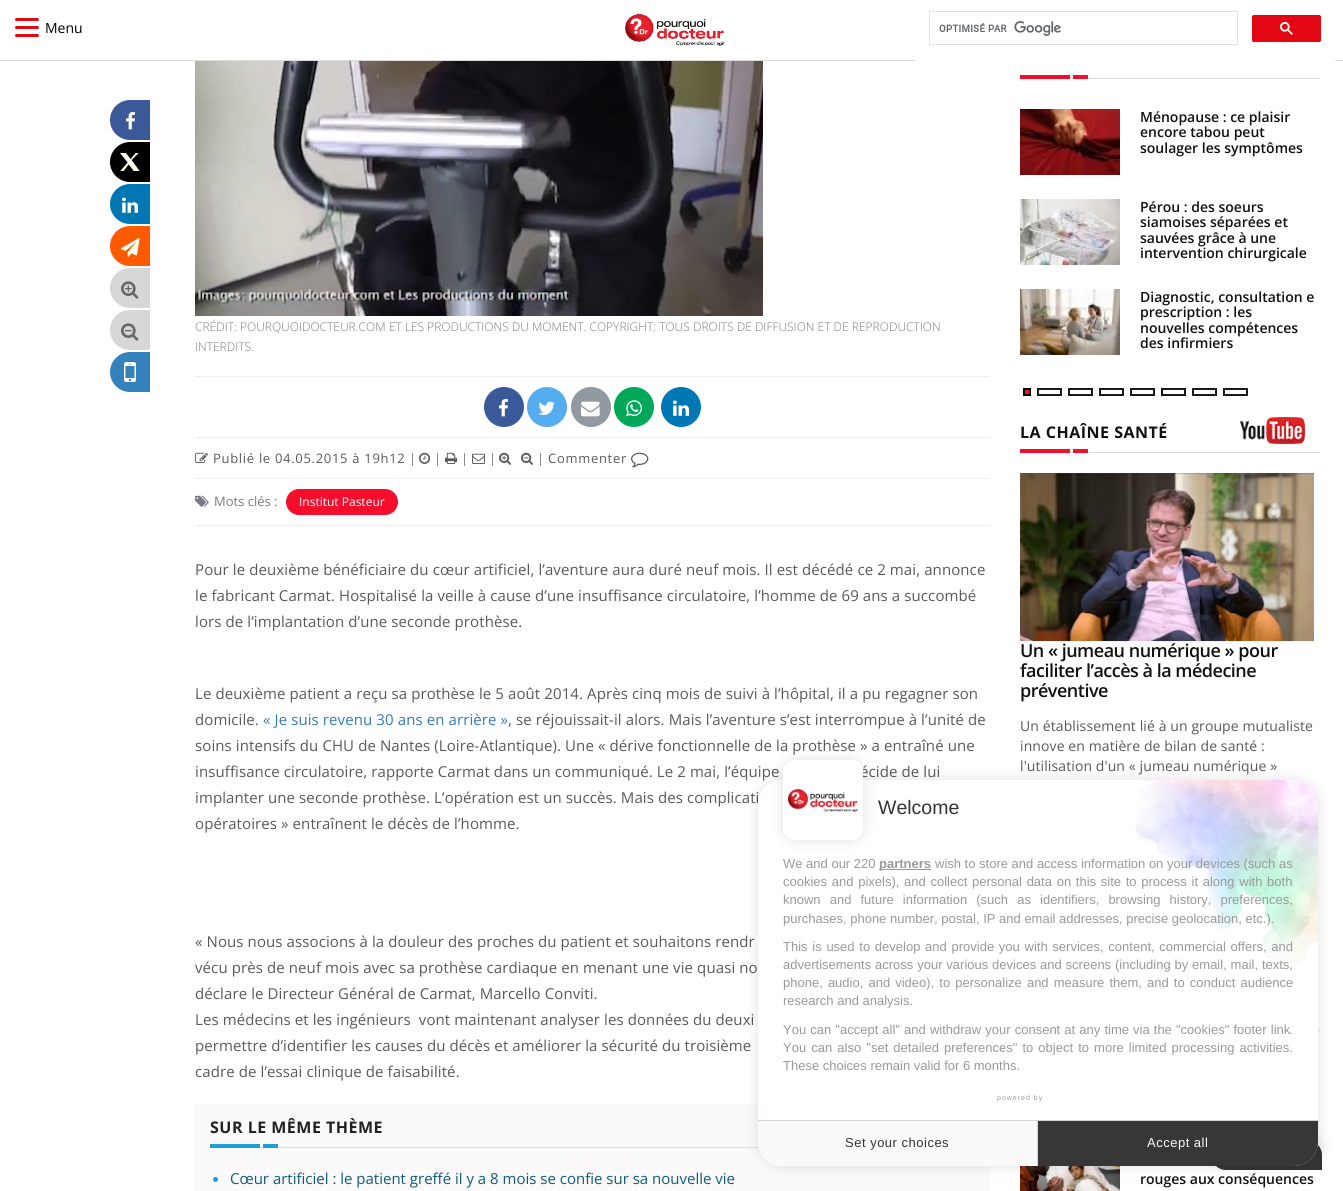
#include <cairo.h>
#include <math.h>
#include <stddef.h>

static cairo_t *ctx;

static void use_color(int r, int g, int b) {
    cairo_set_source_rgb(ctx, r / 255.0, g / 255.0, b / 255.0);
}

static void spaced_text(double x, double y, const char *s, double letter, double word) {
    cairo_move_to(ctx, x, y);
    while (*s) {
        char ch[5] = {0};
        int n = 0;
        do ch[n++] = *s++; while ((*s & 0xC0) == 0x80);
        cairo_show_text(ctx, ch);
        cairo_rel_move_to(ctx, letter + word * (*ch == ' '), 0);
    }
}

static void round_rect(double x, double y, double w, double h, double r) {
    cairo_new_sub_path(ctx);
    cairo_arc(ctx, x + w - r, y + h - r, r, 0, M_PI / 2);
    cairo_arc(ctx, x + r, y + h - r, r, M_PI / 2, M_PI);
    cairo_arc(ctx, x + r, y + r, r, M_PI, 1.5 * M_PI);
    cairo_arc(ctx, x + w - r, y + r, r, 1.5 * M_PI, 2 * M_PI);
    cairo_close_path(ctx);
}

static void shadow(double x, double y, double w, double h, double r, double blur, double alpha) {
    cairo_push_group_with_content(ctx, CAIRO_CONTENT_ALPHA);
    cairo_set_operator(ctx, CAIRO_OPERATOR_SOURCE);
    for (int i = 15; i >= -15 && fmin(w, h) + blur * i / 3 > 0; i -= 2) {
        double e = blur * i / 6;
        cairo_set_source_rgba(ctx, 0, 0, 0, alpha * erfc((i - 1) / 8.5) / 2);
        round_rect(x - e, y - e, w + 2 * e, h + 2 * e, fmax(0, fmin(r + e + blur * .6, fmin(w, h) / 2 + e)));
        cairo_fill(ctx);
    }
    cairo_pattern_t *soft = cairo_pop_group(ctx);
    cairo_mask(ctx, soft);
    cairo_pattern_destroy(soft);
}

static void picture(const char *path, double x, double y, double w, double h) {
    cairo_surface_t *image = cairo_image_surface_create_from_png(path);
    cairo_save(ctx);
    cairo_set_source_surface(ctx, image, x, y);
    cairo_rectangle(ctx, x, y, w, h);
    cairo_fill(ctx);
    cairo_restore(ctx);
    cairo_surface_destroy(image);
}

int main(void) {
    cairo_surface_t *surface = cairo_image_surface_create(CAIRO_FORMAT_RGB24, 1343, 1191);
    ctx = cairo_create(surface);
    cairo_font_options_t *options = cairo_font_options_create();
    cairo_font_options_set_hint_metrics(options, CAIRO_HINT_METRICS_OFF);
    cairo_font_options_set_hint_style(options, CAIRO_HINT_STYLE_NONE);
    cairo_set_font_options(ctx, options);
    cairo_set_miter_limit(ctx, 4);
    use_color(255, 255, 255);
    cairo_paint(ctx);
    use_color(221, 221, 221);
    cairo_rectangle(ctx, 0, 60, 1343, 1);
    cairo_fill(ctx);
    use_color(227, 6, 19);
    round_rect(15, 18, 24, 3, 1.5);
    cairo_fill(ctx);
    round_rect(15, 26, 24, 3, 1.5);
    cairo_fill(ctx);
    round_rect(15, 34, 24, 3, 1.5);
    cairo_fill(ctx);
    cairo_select_font_face(ctx, "Open Sans", CAIRO_FONT_SLANT_NORMAL, CAIRO_FONT_WEIGHT_NORMAL);
    cairo_set_font_size(ctx, 14);
    use_color(0, 0, 0);
    cairo_move_to(ctx, 45, 33);
    cairo_show_text(ctx, "Menu");
    picture("img1.png", 625, 13, 100, 33);
    use_color(255, 255, 255);
    cairo_rectangle(ctx, 915, 60, 420, 1);
    cairo_fill(ctx);
    cairo_rectangle(ctx, 929.5, 11.5, 308, 33);
    use_color(223, 225, 229);
    cairo_set_line_width(ctx, 1);
    cairo_stroke(ctx);
    picture("img2.png", 939, 21, 122, 15);
    use_color(227, 6, 19);
    round_rect(1252.5, 15.5, 68, 26, 1.5);
    cairo_fill_preserve(ctx);
    cairo_stroke(ctx);
    picture("img3.png", 1280, 22, 13, 13);
    use_color(59, 89, 152);
    cairo_new_path(ctx);
    cairo_move_to(ctx, 130, 100);
    cairo_line_to(ctx, 150, 100);
    cairo_line_to(ctx, 150, 140);
    cairo_line_to(ctx, 130, 140);
    cairo_curve_to(ctx, 119, 140, 110, 131, 110, 120);
    cairo_curve_to(ctx, 110, 109, 119, 100, 130, 100);
    cairo_close_path(ctx);
    cairo_fill(ctx);
    picture("img4.png", 126, 112, 9, 18);
    use_color(0, 0, 0);
    cairo_new_path(ctx);
    cairo_move_to(ctx, 130, 142);
    cairo_line_to(ctx, 150, 142);
    cairo_line_to(ctx, 150, 182);
    cairo_line_to(ctx, 130, 182);
    cairo_curve_to(ctx, 119, 182, 110, 173, 110, 162);
    cairo_curve_to(ctx, 110, 151, 119, 142, 130, 142);
    cairo_close_path(ctx);
    cairo_fill(ctx);
    picture("img5.png", 120, 153, 20, 18);
    use_color(0, 119, 181);
    cairo_new_path(ctx);
    cairo_move_to(ctx, 130, 184);
    cairo_line_to(ctx, 150, 184);
    cairo_line_to(ctx, 150, 224);
    cairo_line_to(ctx, 130, 224);
    cairo_curve_to(ctx, 119, 224, 110, 215, 110, 204);
    cairo_curve_to(ctx, 110, 193, 119, 184, 130, 184);
    cairo_close_path(ctx);
    cairo_fill(ctx);
    picture("img6.png", 122, 197, 16, 16);
    use_color(255, 90, 0);
    cairo_new_path(ctx);
    cairo_move_to(ctx, 130, 226);
    cairo_line_to(ctx, 150, 226);
    cairo_line_to(ctx, 150, 266);
    cairo_line_to(ctx, 130, 266);
    cairo_curve_to(ctx, 119, 266, 110, 257, 110, 246);
    cairo_curve_to(ctx, 110, 235, 119, 226, 130, 226);
    cairo_close_path(ctx);
    cairo_fill(ctx);
    picture("img7.png", 121, 238, 19, 19);
    use_color(215, 215, 215);
    cairo_new_path(ctx);
    cairo_move_to(ctx, 130, 268);
    cairo_line_to(ctx, 150, 268);
    cairo_line_to(ctx, 150, 308);
    cairo_line_to(ctx, 130, 308);
    cairo_curve_to(ctx, 119, 308, 110, 299, 110, 288);
    cairo_curve_to(ctx, 110, 277, 119, 268, 130, 268);
    cairo_close_path(ctx);
    cairo_fill(ctx);
    picture("img8.png", 121, 281, 18, 18);
    cairo_new_path(ctx);
    cairo_move_to(ctx, 130, 310);
    cairo_line_to(ctx, 150, 310);
    cairo_line_to(ctx, 150, 350);
    cairo_line_to(ctx, 130, 350);
    cairo_curve_to(ctx, 119, 350, 110, 341, 110, 330);
    cairo_curve_to(ctx, 110, 319, 119, 310, 130, 310);
    cairo_close_path(ctx);
    cairo_fill(ctx);
    picture("img9.png", 121, 323, 18, 18);
    use_color(51, 130, 187);
    cairo_new_path(ctx);
    cairo_move_to(ctx, 130, 352);
    cairo_line_to(ctx, 150, 352);
    cairo_line_to(ctx, 150, 392);
    cairo_line_to(ctx, 130, 392);
    cairo_curve_to(ctx, 119, 392, 110, 383, 110, 372);
    cairo_curve_to(ctx, 110, 361, 119, 352, 130, 352);
    cairo_close_path(ctx);
    cairo_fill(ctx);
    picture("img10.png", 124, 362, 12, 20);
    picture("img11.png", 195, 61, 568, 255);
    cairo_select_font_face(ctx, "Open Sans Light", CAIRO_FONT_SLANT_NORMAL, CAIRO_FONT_WEIGHT_NORMAL);
    cairo_set_font_size(ctx, 12);
    use_color(121, 121, 134);
    cairo_move_to(ctx, 195, 331);
    cairo_show_text(ctx, "CRÉDIT: POURQUOIDOCTEUR.COM ET LES PRODUCTIONS DU MOMENT. COPYRIGHT: TOUS DROITS DE DIFFUSION ET DE REPRODUCTION");
    cairo_move_to(ctx, 195, 351);
    cairo_show_text(ctx, "INTERDITS.");
    use_color(238, 238, 238);
    cairo_rectangle(ctx, 195, 376, 795, 1);
    cairo_fill(ctx);
    use_color(59, 89, 152);
    cairo_arc(ctx, 504, 407, 20, 0, 2 * M_PI);
    cairo_fill(ctx);
    picture("img12.png", 499, 399, 9, 18);
    use_color(85, 172, 238);
    cairo_arc(ctx, 547, 407, 20, 0, 2 * M_PI);
    cairo_fill(ctx);
    picture("img13.png", 538, 401, 17, 14);
    use_color(144, 154, 160);
    cairo_arc(ctx, 591, 407, 20, 0, 2 * M_PI);
    cairo_fill(ctx);
    picture("img14.png", 581, 401, 19, 16);
    use_color(1, 168, 90);
    cairo_arc(ctx, 634, 407, 20, 0, 2 * M_PI);
    cairo_fill(ctx);
    picture("img15.png", 626, 400, 16, 17);
    use_color(0, 119, 181);
    cairo_arc(ctx, 681, 407, 20, 0, 2 * M_PI);
    cairo_fill(ctx);
    picture("img16.png", 673, 400, 16, 16);
    use_color(238, 238, 238);
    cairo_rectangle(ctx, 195, 437, 795, 1);
    cairo_fill(ctx);
    picture("img17.png", 195, 452, 13, 11);
    cairo_select_font_face(ctx, "Open Sans", CAIRO_FONT_SLANT_NORMAL, CAIRO_FONT_WEIGHT_NORMAL);
    cairo_set_font_size(ctx, 13);
    use_color(89, 89, 89);
    spaced_text(213, 463, "Publié le 04.05.2015 à 19h12", 0.7, 0);
    use_color(121, 121, 134);
    cairo_move_to(ctx, 409, 463);
    cairo_show_text(ctx, "|");
    picture("img18.png", 419, 452, 12, 12);
    cairo_move_to(ctx, 434, 463);
    cairo_show_text(ctx, "|");
    picture("img19.png", 445, 452, 13, 12);
    cairo_move_to(ctx, 461, 463);
    cairo_show_text(ctx, "|");
    picture("img20.png", 472, 453, 13, 11);
    cairo_move_to(ctx, 489, 463);
    cairo_show_text(ctx, "|");
    picture("img21.png", 499, 452, 12, 13);
    picture("img22.png", 521, 452, 12, 13);
    cairo_move_to(ctx, 537, 463);
    cairo_show_text(ctx, "|");
    use_color(89, 89, 89);
    spaced_text(548, 463, "Commenter", 0.7, 0);
    picture("img23.png", 631, 452, 18, 16);
    use_color(238, 238, 238);
    cairo_rectangle(ctx, 195, 478, 795, 1);
    cairo_fill(ctx);
    picture("img24.png", 195, 495, 14, 12);
    use_color(121, 121, 134);
    cairo_move_to(ctx, 214, 506);
    cairo_show_text(ctx, "Mots clés :");
    use_color(246, 13, 43);
    round_rect(286.5, 489.5, 111, 25, 12.5);
    cairo_fill_preserve(ctx);
    cairo_stroke(ctx);
    cairo_set_font_size(ctx, 12);
    use_color(255, 255, 255);
    cairo_move_to(ctx, 299, 506);
    cairo_show_text(ctx, "Institut Pasteur");
    use_color(238, 238, 238);
    cairo_rectangle(ctx, 195, 525, 795, 1);
    cairo_fill(ctx);
    cairo_set_font_size(ctx, 15);
    use_color(89, 89, 89);
    spaced_text(195, 575, "Pour le deuxième bénéficiaire du cœur artificiel, l’aventure aura duré neuf mois. Il est décédé ce 2 mai, annonce", 0.1, 0);
    spaced_text(195, 601, "le fabricant Carmat. Hospitalisé la veille à cause d’une insuffisance circulatoire, l’homme de 69 ans a succombé", 0.1, 0);
    spaced_text(195, 627, "lors de l’implantation d’une seconde prothèse.", 0.1, 0);
    spaced_text(195, 699, "Le deuxième patient a reçu sa prothèse le 5 août 2014. Après cinq mois de suivi à l’hôpital, il a pu regagner son", 0.1, 0);
    spaced_text(195, 725, "domicile.", 0.1, 0);
    use_color(51, 122, 183);
    spaced_text(263, 725, "« Je suis revenu 30 ans en arrière »", 0.1, 0);
    use_color(89, 89, 89);
    spaced_text(508, 725, ", se réjouissait-il alors. Mais l’aventure s’est interrompue à l’unité de", 0.1, 0);
    spaced_text(195, 751, "soins intensifs du CHU de Nantes (Loire-Atlantique). Une « dérive fonctionnelle de la prothèse » a entraîné une", 0.1, 0);
    spaced_text(195, 777, "insuffisance circulatoire, rapporte Carmat dans un communiqué. Le 2 mai, l’équipe", 0.1, 0);
    spaced_text(860, 777, "écide de lui", 0.1, 0);
    spaced_text(195, 803, "implanter une seconde prothèse. L’opération est un succès. Mais des complicati", 0.1, 0);
    spaced_text(195, 829, "opératoires » entraînent le décès de l’homme.", 0.1, 0);
    spaced_text(195, 947, "« Nous nous associons à la douleur des proches du patient et souhaitons rendr", 0.1, 0);
    spaced_text(195, 973, "vécu près de neuf mois avec sa prothèse cardiaque en menant une vie quasi no", 0.1, 0);
    spaced_text(195, 999, "déclare le Directeur Général de Carmat, Marcello Conviti.", 0.1, 0);
    spaced_text(195, 1025, "Les médecins et les ingénieurs  vont maintenant analyser les données du deuxi", 0.1, 0);
    spaced_text(195, 1051, "permettre d’identifier les causes du décès et améliorer la sécurité du troisième", 0.1, 0);
    spaced_text(195, 1077, "cadre de l’essai clinique de faisabilité.", 0.1, 0);
    use_color(251, 249, 249);
    cairo_rectangle(ctx, 195, 1104, 795, 87);
    cairo_fill(ctx);
    cairo_select_font_face(ctx, "Open Sans", CAIRO_FONT_SLANT_NORMAL, CAIRO_FONT_WEIGHT_BOLD);
    cairo_set_font_size(ctx, 16);
    use_color(34, 34, 34);
    spaced_text(210, 1133, "SUR LE MÊME THÈME", 0.5, 0);
    use_color(221, 221, 221);
    cairo_rectangle(ctx, 260, 1147, 499, 1);
    cairo_fill(ctx);
    use_color(28, 158, 216);
    cairo_rectangle(ctx, 210, 1144, 50, 4);
    cairo_fill(ctx);
    cairo_rectangle(ctx, 263, 1144, 15, 4);
    cairo_fill(ctx);
    cairo_arc(ctx, 215.5, 1179.5, 2.5, 0, 2 * M_PI);
    cairo_fill(ctx);
    cairo_select_font_face(ctx, "Open Sans", CAIRO_FONT_SLANT_NORMAL, CAIRO_FONT_WEIGHT_NORMAL);
    cairo_set_font_size(ctx, 15);
    use_color(13, 92, 125);
    cairo_move_to(ctx, 230, 1184);
    cairo_show_text(ctx, "Cœur artificiel : le patient greffé il y a 8 mois se confie sur sa nouvelle vie");
    use_color(221, 221, 221);
    cairo_rectangle(ctx, 1070, 78, 250, 1);
    cairo_fill(ctx);
    use_color(246, 13, 43);
    cairo_rectangle(ctx, 1020, 75, 50, 4);
    cairo_fill(ctx);
    cairo_rectangle(ctx, 1073, 75, 15, 4);
    cairo_fill(ctx);
    picture("img25.png", 1020, 109, 100, 66);
    cairo_select_font_face(ctx, "Open Sans SemiBold", CAIRO_FONT_SLANT_NORMAL, CAIRO_FONT_WEIGHT_NORMAL);
    cairo_set_font_size(ctx, 14);
    use_color(17, 17, 17);
    cairo_move_to(ctx, 1140, 122);
    cairo_show_text(ctx, "Ménopause : ce plaisir");
    cairo_move_to(ctx, 1140, 137);
    cairo_show_text(ctx, "encore tabou peut");
    cairo_move_to(ctx, 1140, 153);
    cairo_show_text(ctx, "soulager les symptômes");
    picture("img26.png", 1020, 199, 100, 66);
    cairo_move_to(ctx, 1140, 212);
    cairo_show_text(ctx, "Pérou : des soeurs");
    cairo_move_to(ctx, 1140, 227);
    cairo_show_text(ctx, "siamoises séparées et");
    cairo_move_to(ctx, 1140, 243);
    cairo_show_text(ctx, "sauvées grâce à une");
    cairo_move_to(ctx, 1140, 258);
    cairo_show_text(ctx, "intervention chirurgicale");
    picture("img27.png", 1020, 289, 100, 66);
    cairo_move_to(ctx, 1140, 302);
    cairo_show_text(ctx, "Diagnostic, consultation e");
    cairo_move_to(ctx, 1140, 317);
    cairo_show_text(ctx, "prescription : les");
    cairo_move_to(ctx, 1140, 333);
    cairo_show_text(ctx, "nouvelles compétences");
    cairo_move_to(ctx, 1140, 348);
    cairo_show_text(ctx, "des infirmiers");
    use_color(246, 13, 43);
    cairo_rectangle(ctx, 1024, 389, 6, 6);
    cairo_fill_preserve(ctx);
    use_color(0, 0, 0);
    cairo_set_line_width(ctx, 2);
    cairo_stroke(ctx);
    cairo_rectangle(ctx, 1038, 389, 23, 6);
    use_color(26, 26, 26);
    cairo_stroke(ctx);
    cairo_rectangle(ctx, 1069, 389, 23, 6);
    cairo_stroke(ctx);
    cairo_rectangle(ctx, 1100, 389, 23, 6);
    cairo_stroke(ctx);
    cairo_rectangle(ctx, 1131, 389, 23, 6);
    cairo_stroke(ctx);
    cairo_rectangle(ctx, 1162, 389, 23, 6);
    cairo_stroke(ctx);
    cairo_rectangle(ctx, 1193, 389, 23, 6);
    cairo_stroke(ctx);
    cairo_rectangle(ctx, 1224, 389, 23, 6);
    cairo_stroke(ctx);
    cairo_select_font_face(ctx, "Open Sans", CAIRO_FONT_SLANT_NORMAL, CAIRO_FONT_WEIGHT_BOLD);
    cairo_set_font_size(ctx, 16);
    use_color(17, 17, 17);
    spaced_text(1020, 438, "LA CHAÎNE SANTÉ", 0.5, 0);
    picture("img28.png", 1240, 417, 65, 27);
    use_color(221, 221, 221);
    cairo_rectangle(ctx, 1070, 452, 250, 1);
    cairo_fill(ctx);
    use_color(246, 13, 43);
    cairo_rectangle(ctx, 1020, 449, 50, 4);
    cairo_fill(ctx);
    cairo_rectangle(ctx, 1073, 449, 15, 4);
    cairo_fill(ctx);
    picture("img29.png", 1020, 473, 294, 169);
    cairo_select_font_face(ctx, "Open Sans SemiBold", CAIRO_FONT_SLANT_NORMAL, CAIRO_FONT_WEIGHT_NORMAL);
    cairo_set_font_size(ctx, 18);
    use_color(17, 17, 17);
    spaced_text(1020, 657, "Un « jumeau numérique » pour", -0.5, 0);
    spaced_text(1020, 677, "faciliter l’accès à la médecine", -0.5, 0);
    spaced_text(1020, 697, "préventive", -0.5, 0);
    cairo_select_font_face(ctx, "Open Sans", CAIRO_FONT_SLANT_NORMAL, CAIRO_FONT_WEIGHT_NORMAL);
    cairo_set_font_size(ctx, 14);
    use_color(89, 89, 89);
    spaced_text(1020, 731, "Un établissement lié à un groupe mutualiste", 0.1, 0);
    spaced_text(1020, 751, "innove en matière de bilan de santé :", 0.1, 0);
    spaced_text(1020, 771, "l'utilisation d'un « jumeau numérique »", 0.1, 0);
    use_color(221, 221, 221);
    cairo_rectangle(ctx, 1318, 1030, 2, 1);
    cairo_fill(ctx);
    picture("img30.png", 1020, 1166, 100, 25);
    cairo_select_font_face(ctx, "Open Sans SemiBold", CAIRO_FONT_SLANT_NORMAL, CAIRO_FONT_WEIGHT_NORMAL);
    use_color(17, 17, 17);
    cairo_move_to(ctx, 1140, 1184);
    cairo_show_text(ctx, "rouges aux conséquences");
    use_color(0, 0, 0);
    shadow(1212, 1136, 109, 28, 14, 6, 0.12);
    use_color(51, 51, 51);
    cairo_new_path(ctx);
    cairo_move_to(ctx, 1226, 1139.5);
    cairo_line_to(ctx, 1307, 1139.5);
    cairo_curve_to(ctx, 1315.5, 1139.5, 1322.5, 1146.5, 1322.5, 1155);
    cairo_line_to(ctx, 1322.5, 1170.5);
    cairo_line_to(ctx, 1226, 1170.5);
    cairo_curve_to(ctx, 1217.5, 1170.5, 1210.5, 1163.5, 1210.5, 1155);
    cairo_curve_to(ctx, 1210.5, 1146.5, 1217.5, 1139.5, 1226, 1139.5);
    cairo_close_path(ctx);
    cairo_fill_preserve(ctx);
    use_color(255, 255, 255);
    cairo_set_line_width(ctx, 1);
    cairo_stroke(ctx);
    use_color(0, 0, 0);
    shadow(758, 780, 560, 386, 24, 7.5, 0.12);
    use_color(255, 255, 255);
    round_rect(758, 780, 560, 386, 24);
    cairo_fill(ctx);
    use_color(0, 0, 0);
    shadow(783, 760, 80, 80, 12, 7.5, 0.12);
    use_color(255, 255, 255);
    round_rect(783, 760, 80, 80, 12);
    cairo_fill(ctx);
    picture("img31.png", 788, 789, 70, 23);
    round_rect(785.5, 762.5, 75, 75, 9.5);
    cairo_set_line_width(ctx, 5);
    cairo_stroke(ctx);
    picture("img32.png", 1135, 780, 183, 187);
    cairo_select_font_face(ctx, "Liberation Sans", CAIRO_FONT_SLANT_NORMAL, CAIRO_FONT_WEIGHT_NORMAL);
    cairo_set_font_size(ctx, 19.5);
    use_color(51, 51, 51);
    cairo_move_to(ctx, 878, 814);
    cairo_show_text(ctx, "Welcome");
    cairo_set_font_size(ctx, 13);
    use_color(153, 153, 153);
    cairo_move_to(ctx, 783, 868);
    cairo_show_text(ctx, "We and our 220");
    cairo_rectangle(ctx, 879, 869, 52, 1);
    cairo_fill(ctx);
    cairo_select_font_face(ctx, "Liberation Sans", CAIRO_FONT_SLANT_NORMAL, CAIRO_FONT_WEIGHT_BOLD);
    cairo_move_to(ctx, 879, 868);
    cairo_show_text(ctx, "partners");
    cairo_select_font_face(ctx, "Liberation Sans", CAIRO_FONT_SLANT_NORMAL, CAIRO_FONT_WEIGHT_NORMAL);
    cairo_move_to(ctx, 935, 868);
    cairo_show_text(ctx, "wish to store and access information on your devices (such as");
    spaced_text(783, 886, "cookies and pixels), and collect personal data on this site to process it along with both", 0, 1.1);
    spaced_text(783, 904, "known and future information (such as identifiers, browsing history, preferences,", 0, 5.5);
    cairo_move_to(ctx, 783, 923);
    cairo_show_text(ctx, "purchases, phone number, postal, IP and email addresses, precise geolocation, etc.).");
    spaced_text(783, 951, "This is used to develop and provide you with services, content, commercial offers, and", 0, 1.1);
    spaced_text(783, 969, "advertisements across your various devices and screens (including by email, mail, texts,", 0, 0.25);
    spaced_text(783, 987, "phone, audio, and video), to personalize and measure them, and to conduct audience", 0, 1.5);
    cairo_move_to(ctx, 783, 1005);
    cairo_show_text(ctx, "research and analysis.");
    spaced_text(783, 1034, "You can \"accept all\" and withdraw your consent at any time via the \"cookies\" footer link", 0, 0.5);
    cairo_move_to(ctx, 1289, 1034);
    cairo_show_text(ctx, ".");
    spaced_text(783, 1052, "You can also \"set detailed preferences\" to object to more limited processing activities.", 0, 1.5);
    cairo_move_to(ctx, 783, 1070);
    cairo_show_text(ctx, "These choices remain valid for 6 months.");
    cairo_set_font_size(ctx, 7);
    spaced_text(997, 1100, "powered by", 1, 0);
    use_color(249, 249, 249);
    cairo_new_path(ctx);
    cairo_move_to(ctx, 758, 1120);
    cairo_line_to(ctx, 1038, 1120);
    cairo_line_to(ctx, 1038, 1166);
    cairo_line_to(ctx, 782, 1166);
    cairo_curve_to(ctx, 768.5, 1166, 758, 1155.5, 758, 1142);
    cairo_close_path(ctx);
    cairo_fill(ctx);
    use_color(212, 212, 212);
    cairo_rectangle(ctx, 758, 1120, 280, 1);
    cairo_fill(ctx);
    cairo_rectangle(ctx, 1037, 1120, 1, 46);
    cairo_fill(ctx);
    cairo_set_font_size(ctx, 13);
    use_color(51, 51, 51);
    spaced_text(845, 1147, "Set your choices", 0.5, 0);
    use_color(55, 55, 55);
    cairo_new_path(ctx);
    cairo_move_to(ctx, 1038, 1120);
    cairo_line_to(ctx, 1318, 1120);
    cairo_line_to(ctx, 1318, 1142);
    cairo_curve_to(ctx, 1318, 1155.5, 1307.5, 1166, 1294, 1166);
    cairo_line_to(ctx, 1038, 1166);
    cairo_close_path(ctx);
    cairo_fill(ctx);
    use_color(212, 212, 212);
    cairo_rectangle(ctx, 1038, 1120, 280, 1);
    cairo_fill(ctx);
    use_color(249, 249, 249);
    spaced_text(1147, 1147, "Accept all", 0.5, 0);
    cairo_surface_write_to_png(surface, "result.png");
    cairo_font_options_destroy(options);
    cairo_destroy(ctx);
    cairo_surface_destroy(surface);
    return 0;
}
